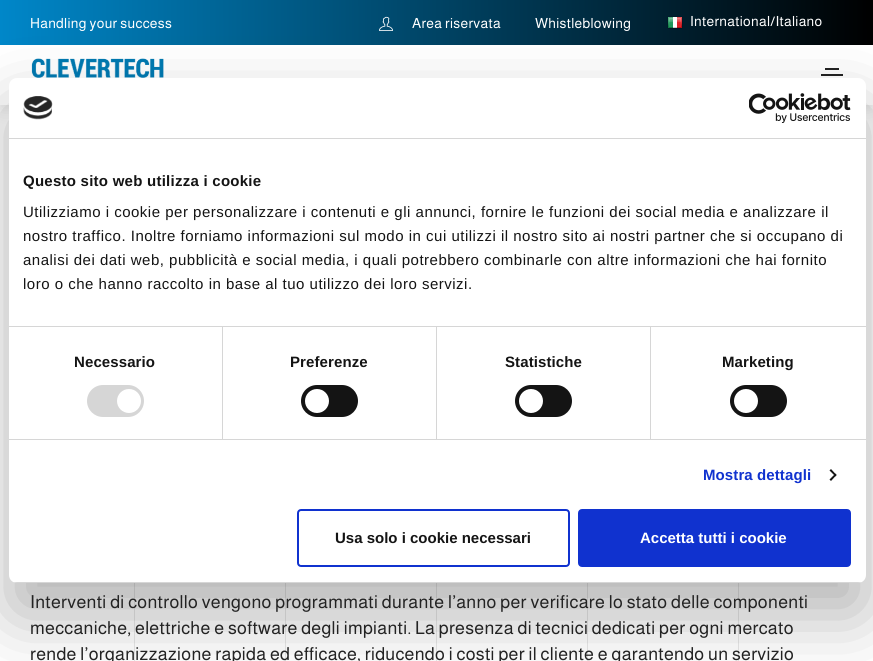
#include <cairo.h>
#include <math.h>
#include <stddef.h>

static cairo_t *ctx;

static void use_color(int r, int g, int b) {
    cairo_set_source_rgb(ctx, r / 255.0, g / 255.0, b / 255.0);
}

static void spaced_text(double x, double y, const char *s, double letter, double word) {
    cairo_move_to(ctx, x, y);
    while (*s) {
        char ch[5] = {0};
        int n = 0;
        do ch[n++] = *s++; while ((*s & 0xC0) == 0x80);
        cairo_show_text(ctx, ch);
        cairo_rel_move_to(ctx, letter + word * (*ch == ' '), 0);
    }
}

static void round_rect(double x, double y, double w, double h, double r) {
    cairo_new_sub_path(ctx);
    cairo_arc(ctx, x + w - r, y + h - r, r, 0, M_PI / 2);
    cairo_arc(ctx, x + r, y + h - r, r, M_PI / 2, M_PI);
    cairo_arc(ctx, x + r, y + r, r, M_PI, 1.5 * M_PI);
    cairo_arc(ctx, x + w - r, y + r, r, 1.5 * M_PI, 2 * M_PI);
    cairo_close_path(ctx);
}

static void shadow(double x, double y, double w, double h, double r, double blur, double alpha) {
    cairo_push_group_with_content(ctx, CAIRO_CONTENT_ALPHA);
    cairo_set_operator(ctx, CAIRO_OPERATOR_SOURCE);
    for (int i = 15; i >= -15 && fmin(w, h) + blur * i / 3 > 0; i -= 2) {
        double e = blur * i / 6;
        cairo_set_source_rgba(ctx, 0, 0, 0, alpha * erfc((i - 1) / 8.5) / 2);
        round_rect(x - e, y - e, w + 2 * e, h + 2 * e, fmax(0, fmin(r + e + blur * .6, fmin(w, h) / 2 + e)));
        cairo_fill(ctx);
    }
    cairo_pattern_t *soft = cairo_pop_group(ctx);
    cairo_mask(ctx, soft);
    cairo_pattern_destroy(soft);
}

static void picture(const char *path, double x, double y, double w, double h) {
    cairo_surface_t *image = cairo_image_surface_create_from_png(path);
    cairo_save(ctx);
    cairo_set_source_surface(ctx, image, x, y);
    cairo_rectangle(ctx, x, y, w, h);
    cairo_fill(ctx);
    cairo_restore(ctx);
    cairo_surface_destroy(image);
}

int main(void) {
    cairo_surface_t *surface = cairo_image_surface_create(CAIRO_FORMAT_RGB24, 873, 661);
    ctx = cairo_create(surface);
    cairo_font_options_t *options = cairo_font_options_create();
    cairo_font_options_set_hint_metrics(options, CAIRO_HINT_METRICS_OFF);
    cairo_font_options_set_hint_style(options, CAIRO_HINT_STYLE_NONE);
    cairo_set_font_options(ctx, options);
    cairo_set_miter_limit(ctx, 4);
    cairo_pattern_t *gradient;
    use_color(255, 255, 255);
    cairo_paint(ctx);
    picture("img1.png", 134, 583, 605, 78);
    use_color(0, 0, 0);
    shadow(0, 50, 873, 60, 0, 7.5, 0.1);
    gradient = cairo_pattern_create_linear(0, 23, 873, 22);
    cairo_pattern_add_color_stop_rgba(gradient, 0, 0, 0.529, 0.788, 1);
    cairo_pattern_add_color_stop_rgba(gradient, 1, 0, 0, 0, 1);
    cairo_set_source(ctx, gradient);
    cairo_pattern_destroy(gradient);
    cairo_rectangle(ctx, 0, 0, 873, 45);
    cairo_fill(ctx);
    cairo_select_font_face(ctx, "Almarai", CAIRO_FONT_SLANT_NORMAL, CAIRO_FONT_WEIGHT_NORMAL);
    cairo_set_font_size(ctx, 14);
    use_color(255, 255, 255);
    spaced_text(30, 28, "Handling your success", 0.3, 0);
    picture("img2.png", 379, 16, 14, 15);
    spaced_text(412, 28, "Area riservata", 0.3, 0);
    spaced_text(535, 28, "Whistleblowing", 0.3, 0);
    picture("img3.png", 667, 16, 16, 13);
    spaced_text(690, 26, "International/Italiano", 0.3, 0);
    cairo_rectangle(ctx, 0, 45, 873, 60);
    cairo_fill(ctx);
    picture("img4.png", 31, 58, 133, 20);
    use_color(35, 35, 35);
    cairo_rectangle(ctx, 825, 68, 14, 2);
    cairo_fill(ctx);
    cairo_rectangle(ctx, 821, 74, 22, 2);
    cairo_fill(ctx);
    use_color(0, 0, 0);
    shadow(9, 110, 857, 505, 8, 34, 0.3);
    use_color(255, 255, 255);
    round_rect(9, 78, 857, 505, 8);
    cairo_fill(ctx);
    use_color(214, 214, 214);
    cairo_rectangle(ctx, 9, 138, 857, 1);
    cairo_fill(ctx);
    picture("img5.png", 23, 96, 30, 24);
    picture("img6.png", 749, 93, 102, 30);
    cairo_rectangle(ctx, 9, 326, 857, 1);
    cairo_fill(ctx);
    cairo_select_font_face(ctx, "Liberation Sans", CAIRO_FONT_SLANT_NORMAL, CAIRO_FONT_WEIGHT_BOLD);
    cairo_set_font_size(ctx, 15);
    use_color(20, 20, 20);
    spaced_text(23, 186, "Questo sito web utilizza i cookie", 0.25, 0);
    cairo_select_font_face(ctx, "Liberation Sans", CAIRO_FONT_SLANT_NORMAL, CAIRO_FONT_WEIGHT_NORMAL);
    spaced_text(23, 217, "Utilizziamo i cookie per personalizzare i contenuti e gli annunci, fornire le funzioni dei social media e analizzare il", 0.5, 0);
    spaced_text(23, 241, "nostro traffico. Inoltre forniamo informazioni sul modo in cui utilizzi il nostro sito ai nostri partner che si occupano di", 0.5, 0);
    spaced_text(23, 265, "analisi dei dati web, pubblicità e social media, i quali potrebbero combinarle con altre informazioni che hai fornito", 0.5, 0);
    spaced_text(23, 289, "loro o che hanno raccolto in base al tuo utilizzo dei loro servizi.", 0.5, 0);
    use_color(214, 214, 214);
    cairo_rectangle(ctx, 9, 439, 857, 1);
    cairo_fill(ctx);
    cairo_rectangle(ctx, 222, 327, 1, 112);
    cairo_fill(ctx);
    cairo_select_font_face(ctx, "Liberation Sans", CAIRO_FONT_SLANT_NORMAL, CAIRO_FONT_WEIGHT_BOLD);
    use_color(20, 20, 20);
    spaced_text(74, 367, "Necessario", 0.1, 0);
    use_color(214, 214, 214);
    round_rect(87, 385, 57, 32, 16);
    cairo_fill(ctx);
    use_color(255, 255, 255);
    cairo_arc(ctx, 129, 401, 12, 0, 2 * M_PI);
    cairo_fill(ctx);
    use_color(214, 214, 214);
    cairo_rectangle(ctx, 436, 327, 1, 112);
    cairo_fill(ctx);
    use_color(20, 20, 20);
    spaced_text(290, 367, "Preferenze", 0.1, 0);
    round_rect(301, 385, 57, 32, 16);
    cairo_fill(ctx);
    use_color(255, 255, 255);
    cairo_arc(ctx, 317, 401, 12, 0, 2 * M_PI);
    cairo_fill(ctx);
    use_color(214, 214, 214);
    cairo_rectangle(ctx, 650, 327, 1, 112);
    cairo_fill(ctx);
    use_color(20, 20, 20);
    spaced_text(505, 367, "Statistiche", 0.1, 0);
    round_rect(515, 385, 57, 32, 16);
    cairo_fill(ctx);
    use_color(255, 255, 255);
    cairo_arc(ctx, 531, 401, 12, 0, 2 * M_PI);
    cairo_fill(ctx);
    use_color(20, 20, 20);
    spaced_text(722, 367, "Marketing", 0.1, 0);
    round_rect(730, 385, 57, 32, 16);
    cairo_fill(ctx);
    use_color(255, 255, 255);
    cairo_arc(ctx, 746, 401, 12, 0, 2 * M_PI);
    cairo_fill(ctx);
    use_color(16, 50, 207);
    spaced_text(703, 480, "Mostra dettagli", 0.1, 0);
    use_color(20, 20, 20);
    cairo_new_path(ctx);
    cairo_move_to(ctx, 831, 469);
    cairo_line_to(ctx, 836.5, 475);
    cairo_line_to(ctx, 835.5, 476.5);
    cairo_line_to(ctx, 829.5, 470.5);
    cairo_close_path(ctx);
    cairo_fill(ctx);
    cairo_new_path(ctx);
    cairo_move_to(ctx, 835.5, 473.5);
    cairo_line_to(ctx, 836.5, 475);
    cairo_line_to(ctx, 831, 481);
    cairo_line_to(ctx, 829.5, 479.5);
    cairo_close_path(ctx);
    cairo_fill(ctx);
    cairo_save(ctx);
    round_rect(9, 78, 857, 505, 8);
    cairo_clip(ctx);
    use_color(214, 214, 214);
    cairo_rectangle(ctx, 9, 582, 857, 1);
    cairo_fill(ctx);
    cairo_restore(ctx);
    round_rect(298, 510, 271, 56, 3);
    use_color(16, 50, 207);
    cairo_stroke(ctx);
    use_color(20, 20, 20);
    cairo_move_to(ctx, 335, 543);
    cairo_show_text(ctx, "Usa solo i cookie necessari");
    use_color(16, 50, 207);
    round_rect(579, 510, 271, 56, 3);
    cairo_fill_preserve(ctx);
    cairo_stroke(ctx);
    use_color(255, 255, 255);
    cairo_move_to(ctx, 640, 543);
    cairo_show_text(ctx, "Accetta tutti i cookie");
    cairo_select_font_face(ctx, "Almarai", CAIRO_FONT_SLANT_NORMAL, CAIRO_FONT_WEIGHT_NORMAL);
    cairo_set_font_size(ctx, 18);
    use_color(35, 35, 35);
    spaced_text(30, 608, "Interventi di controllo vengono programmati durante l’anno per verificare lo stato delle componenti", 0.3, 0);
    spaced_text(30, 634, "meccaniche, elettriche e software degli impianti. La presenza di tecnici dedicati per ogni mercato", 0.3, 0);
    spaced_text(30, 660, "rende l’organizzazione rapida ed efficace, riducendo i costi per il cliente e garantendo un servizio", 0.3, 0);
    cairo_surface_write_to_png(surface, "result.png");
    cairo_font_options_destroy(options);
    cairo_destroy(ctx);
    cairo_surface_destroy(surface);
    return 0;
}
